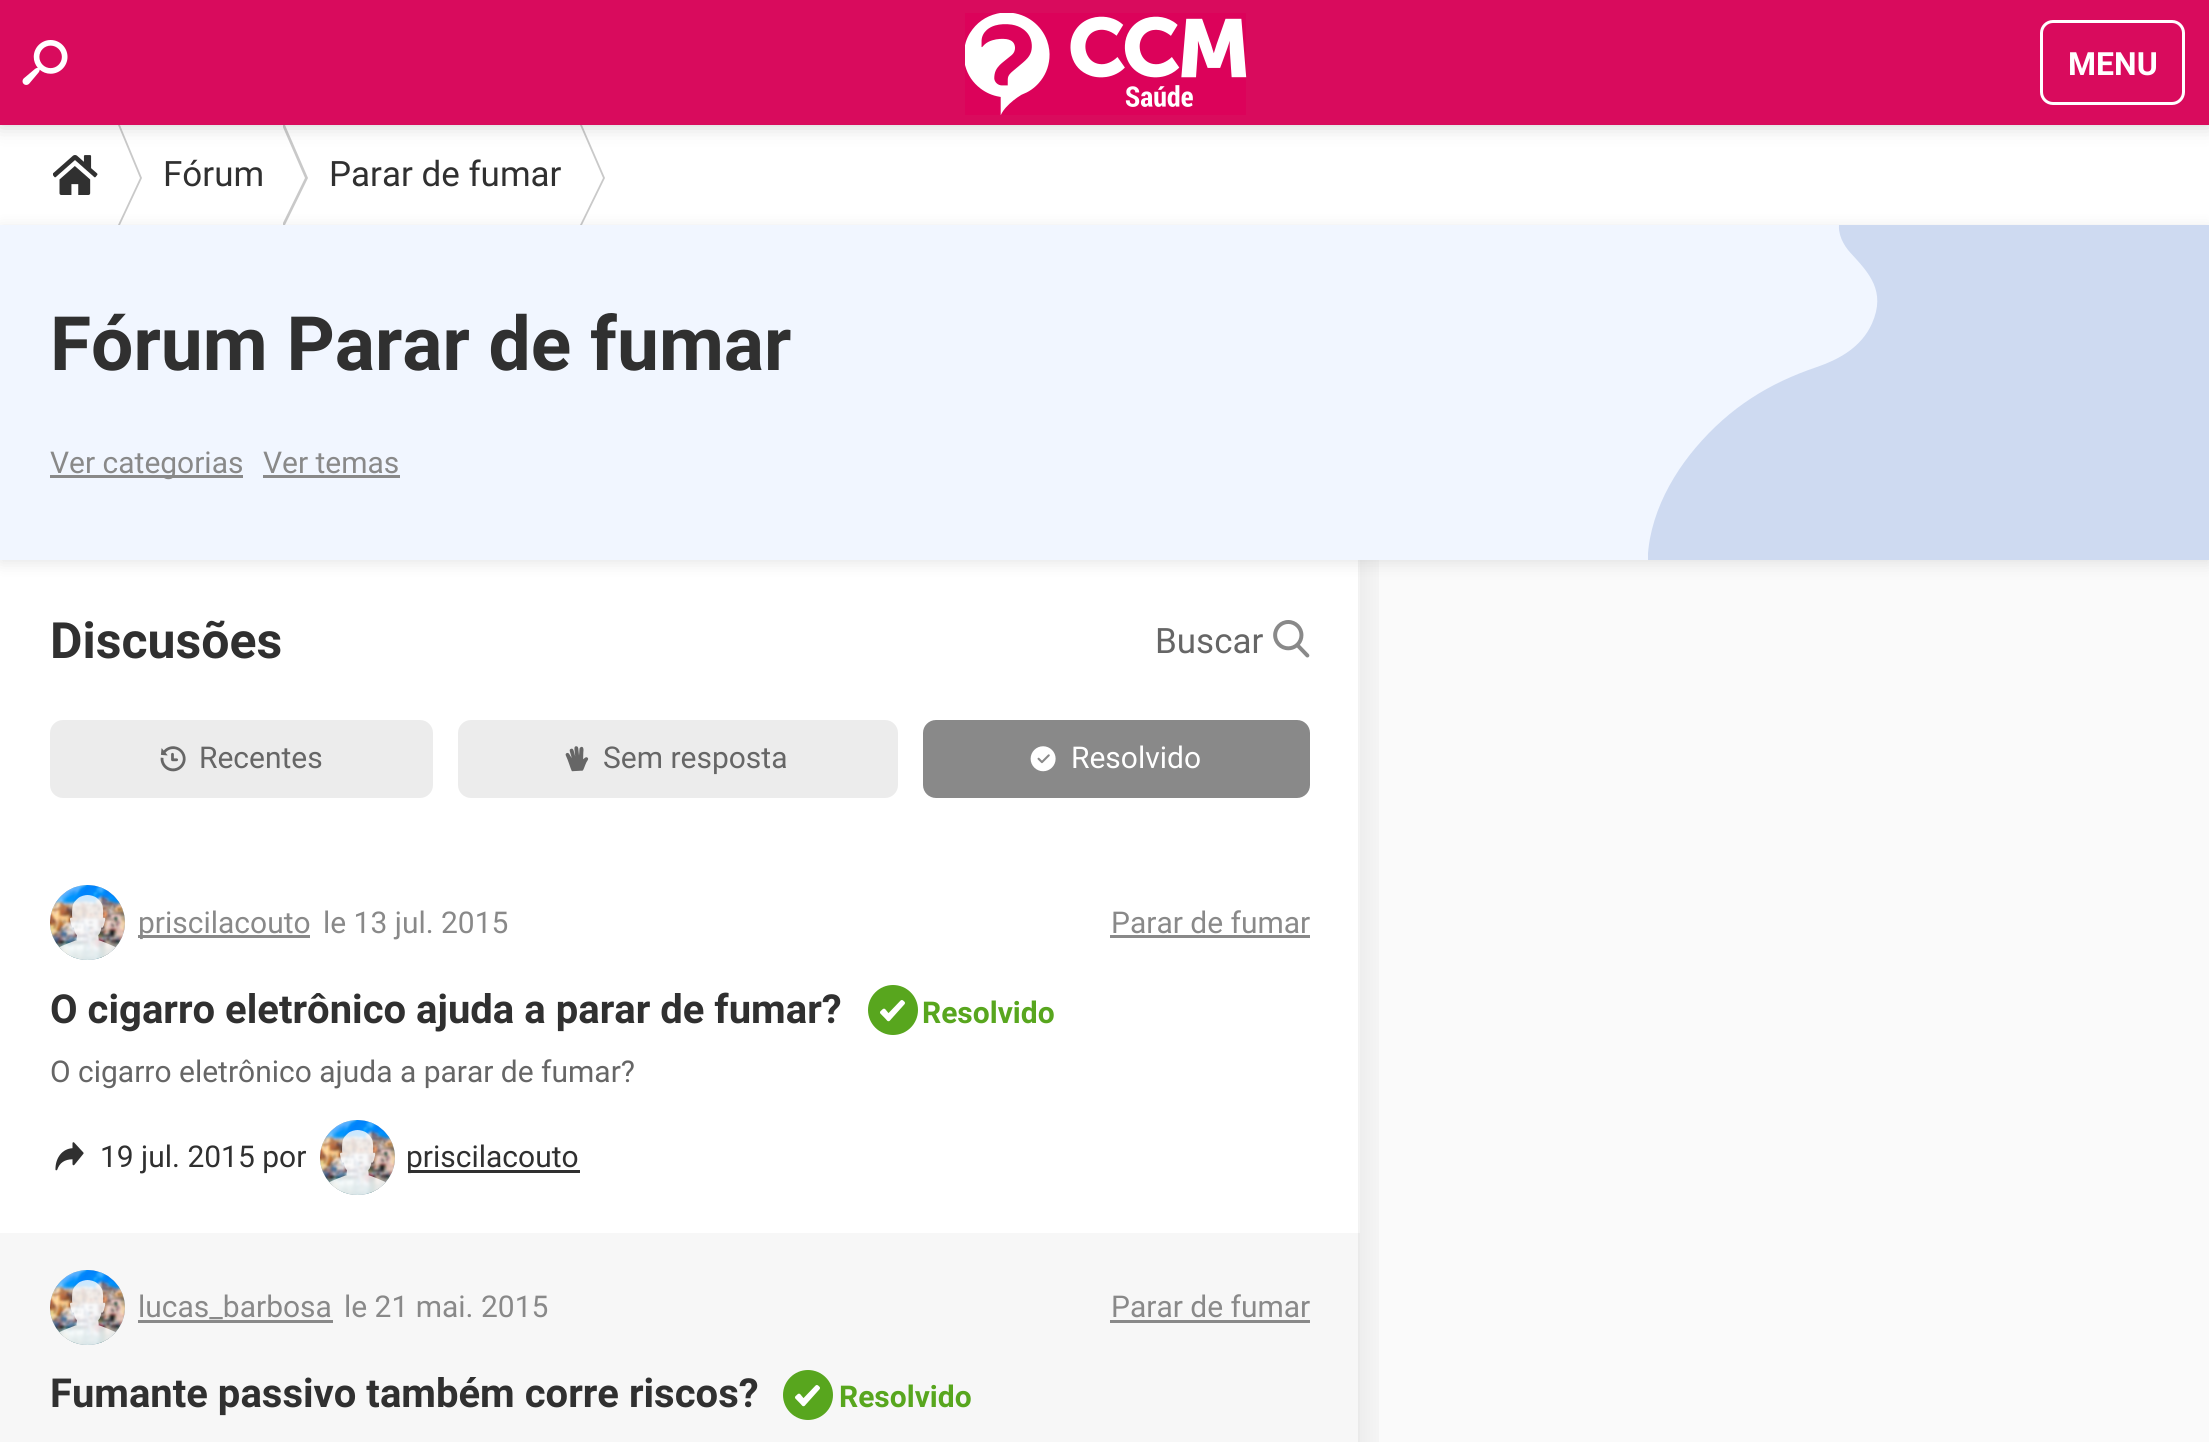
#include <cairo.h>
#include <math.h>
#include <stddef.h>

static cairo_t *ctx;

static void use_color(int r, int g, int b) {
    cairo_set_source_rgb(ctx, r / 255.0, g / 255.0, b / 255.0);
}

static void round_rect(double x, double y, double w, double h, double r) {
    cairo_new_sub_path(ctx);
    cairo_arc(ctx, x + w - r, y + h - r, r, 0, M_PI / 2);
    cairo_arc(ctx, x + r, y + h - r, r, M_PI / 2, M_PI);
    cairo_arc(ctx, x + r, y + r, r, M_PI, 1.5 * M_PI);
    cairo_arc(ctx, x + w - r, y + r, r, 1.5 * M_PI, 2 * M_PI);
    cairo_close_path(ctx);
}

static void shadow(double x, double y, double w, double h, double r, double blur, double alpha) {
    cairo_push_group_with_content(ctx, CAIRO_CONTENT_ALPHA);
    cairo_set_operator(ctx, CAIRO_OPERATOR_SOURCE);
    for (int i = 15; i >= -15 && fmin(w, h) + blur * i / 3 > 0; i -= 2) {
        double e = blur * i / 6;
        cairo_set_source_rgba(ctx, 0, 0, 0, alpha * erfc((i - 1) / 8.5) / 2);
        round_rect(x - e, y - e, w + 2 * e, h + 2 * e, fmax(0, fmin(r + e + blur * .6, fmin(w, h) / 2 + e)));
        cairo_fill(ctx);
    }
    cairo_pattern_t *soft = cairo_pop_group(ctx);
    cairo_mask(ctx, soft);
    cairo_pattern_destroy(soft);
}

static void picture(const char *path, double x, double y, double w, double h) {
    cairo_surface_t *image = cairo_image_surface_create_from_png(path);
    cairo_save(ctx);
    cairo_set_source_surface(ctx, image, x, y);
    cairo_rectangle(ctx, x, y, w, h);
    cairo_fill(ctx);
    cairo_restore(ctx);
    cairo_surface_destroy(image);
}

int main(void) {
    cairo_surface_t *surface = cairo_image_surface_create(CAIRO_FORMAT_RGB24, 2209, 1442);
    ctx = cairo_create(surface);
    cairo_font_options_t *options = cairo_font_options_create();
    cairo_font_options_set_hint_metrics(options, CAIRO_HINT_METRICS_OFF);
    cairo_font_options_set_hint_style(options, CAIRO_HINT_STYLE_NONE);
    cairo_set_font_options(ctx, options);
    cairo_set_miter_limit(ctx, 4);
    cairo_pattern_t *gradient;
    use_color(255, 255, 255);
    cairo_paint(ctx);
    picture("img3.png", 53, 155, 45, 40);
    use_color(201, 201, 201);
    cairo_set_fill_rule(ctx, CAIRO_FILL_RULE_EVEN_ODD);
    cairo_new_path(ctx);
    cairo_move_to(ctx, 118, 125);
    cairo_line_to(ctx, 120, 125);
    cairo_line_to(ctx, 142, 178);
    cairo_line_to(ctx, 120, 225);
    cairo_line_to(ctx, 118, 225);
    cairo_line_to(ctx, 140, 178);
    cairo_close_path(ctx);
    cairo_fill(ctx);
    cairo_save(ctx);
    cairo_set_fill_rule(ctx, CAIRO_FILL_RULE_WINDING);
    cairo_rectangle(ctx, 283, 125, 25, 100);
    cairo_clip(ctx);
    cairo_set_fill_rule(ctx, CAIRO_FILL_RULE_EVEN_ODD);
    cairo_new_path(ctx);
    cairo_move_to(ctx, 282, 125);
    cairo_line_to(ctx, 285, 125);
    cairo_line_to(ctx, 308, 178);
    cairo_line_to(ctx, 285, 225);
    cairo_line_to(ctx, 282, 225);
    cairo_line_to(ctx, 305, 178);
    cairo_close_path(ctx);
    cairo_fill(ctx);
    cairo_restore(ctx);
    cairo_new_path(ctx);
    cairo_move_to(ctx, 580, 125);
    cairo_line_to(ctx, 582, 125);
    cairo_line_to(ctx, 605, 178);
    cairo_line_to(ctx, 582, 225);
    cairo_line_to(ctx, 580, 225);
    cairo_line_to(ctx, 603, 178);
    cairo_close_path(ctx);
    cairo_fill(ctx);
    use_color(0, 0, 0);
    shadow(0, 0, 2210, 125, 0, 10, 0.2);
    use_color(217, 11, 93);
    cairo_rectangle(ctx, 0, 0, 2209, 125);
    cairo_fill(ctx);
    picture("img1.png", 22, 40, 46, 45);
    picture("img2.png", 965, 13, 282, 102);
    round_rect(2041.5, 21.5, 142, 82, 11.5);
    use_color(255, 255, 255);
    cairo_set_line_width(ctx, 3);
    cairo_stroke(ctx);
    cairo_select_font_face(ctx, "Roboto", CAIRO_FONT_SLANT_NORMAL, CAIRO_FONT_WEIGHT_BOLD);
    cairo_set_font_size(ctx, 32);
    cairo_move_to(ctx, 2068, 75);
    cairo_show_text(ctx, "MENU");
    cairo_select_font_face(ctx, "Roboto", CAIRO_FONT_SLANT_NORMAL, CAIRO_FONT_WEIGHT_NORMAL);
    cairo_set_font_size(ctx, 35);
    use_color(48, 48, 48);
    cairo_move_to(ctx, 163, 186);
    cairo_show_text(ctx, "Fórum");
    cairo_move_to(ctx, 329, 186);
    cairo_show_text(ctx, "Parar de fumar");
    use_color(250, 250, 250);
    cairo_rectangle(ctx, 1360, 560, 849, 882);
    cairo_fill(ctx);
    use_color(247, 247, 247);
    cairo_rectangle(ctx, 0, 1233, 1360, 209);
    cairo_fill(ctx);
    gradient = cairo_pattern_create_linear(1358, 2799, 1395, 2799);
    cairo_pattern_add_color_stop_rgba(gradient, 0, 0, 0, 0, 0.05);
    cairo_pattern_add_color_stop_rgba(gradient, 1, 0, 0, 0, 0);
    cairo_set_source(ctx, gradient);
    cairo_pattern_destroy(gradient);
    cairo_rectangle(ctx, 1358, 560, 21, 882);
    cairo_fill(ctx);
    use_color(0, 0, 0);
    shadow(0, 228, 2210, 335, 0, 7.5, 0.1);
    use_color(241, 246, 255);
    cairo_rectangle(ctx, 0, 225, 1878, 335);
    cairo_fill(ctx);
    picture("img4.png", 1648, 225, 561, 335);
    cairo_select_font_face(ctx, "Roboto", CAIRO_FONT_SLANT_NORMAL, CAIRO_FONT_WEIGHT_BOLD);
    cairo_set_font_size(ctx, 75);
    use_color(48, 48, 48);
    cairo_move_to(ctx, 50, 370);
    cairo_show_text(ctx, "Fórum Parar de fumar");
    use_color(137, 137, 137);
    cairo_rectangle(ctx, 50, 475, 193, 3);
    cairo_fill(ctx);
    cairo_select_font_face(ctx, "Roboto", CAIRO_FONT_SLANT_NORMAL, CAIRO_FONT_WEIGHT_NORMAL);
    cairo_set_font_size(ctx, 30);
    cairo_move_to(ctx, 50, 473);
    cairo_show_text(ctx, "Ver categorias");
    cairo_move_to(ctx, 263, 473);
    cairo_show_text(ctx, "Ver temas");
    cairo_rectangle(ctx, 263, 475, 137, 3);
    cairo_fill(ctx);
    cairo_select_font_face(ctx, "Roboto", CAIRO_FONT_SLANT_NORMAL, CAIRO_FONT_WEIGHT_BOLD);
    cairo_set_font_size(ctx, 50);
    use_color(48, 48, 48);
    cairo_move_to(ctx, 50, 658);
    cairo_show_text(ctx, "Discusões");
    cairo_select_font_face(ctx, "Roboto", CAIRO_FONT_SLANT_NORMAL, CAIRO_FONT_WEIGHT_NORMAL);
    cairo_set_font_size(ctx, 35);
    use_color(102, 102, 102);
    cairo_move_to(ctx, 1155, 653);
    cairo_show_text(ctx, "Buscar");
    picture("img5.png", 1273, 620, 37, 38);
    use_color(236, 236, 236);
    round_rect(50, 720, 383, 78, 13);
    cairo_fill(ctx);
    picture("img6.png", 160, 746, 26, 26);
    cairo_set_font_size(ctx, 30);
    use_color(102, 102, 102);
    cairo_move_to(ctx, 199, 768);
    cairo_show_text(ctx, "Recentes");
    use_color(236, 236, 236);
    round_rect(458, 720, 440, 78, 13);
    cairo_fill(ctx);
    picture("img7.png", 565, 746, 24, 26);
    use_color(102, 102, 102);
    cairo_move_to(ctx, 603, 768);
    cairo_show_text(ctx, "Sem resposta");
    use_color(137, 137, 137);
    round_rect(923, 720, 387, 78, 13);
    cairo_fill(ctx);
    picture("img8.png", 1030, 746, 26, 26);
    use_color(255, 255, 255);
    cairo_move_to(ctx, 1071, 768);
    cairo_show_text(ctx, "Resolvido");
    use_color(176, 190, 203);
    cairo_new_path(ctx);
    cairo_arc(ctx, 87.5, 922.5, 37.5, 0, 2 * M_PI);
    cairo_fill(ctx);
    picture("img9.png", 50, 885, 75, 75);
    picture("img10.png", 59, 895, 57, 65);
    use_color(137, 137, 137);
    cairo_rectangle(ctx, 138, 935, 172, 3);
    cairo_fill(ctx);
    cairo_move_to(ctx, 138, 933);
    cairo_show_text(ctx, "priscilacouto");
    cairo_move_to(ctx, 323, 933);
    cairo_show_text(ctx, "le 13 jul. 2015");
    cairo_move_to(ctx, 1111, 933);
    cairo_show_text(ctx, "Parar de fumar");
    cairo_rectangle(ctx, 1110, 935, 200, 3);
    cairo_fill(ctx);
    cairo_select_font_face(ctx, "Roboto", CAIRO_FONT_SLANT_NORMAL, CAIRO_FONT_WEIGHT_BOLD);
    cairo_set_font_size(ctx, 40);
    use_color(48, 48, 48);
    cairo_move_to(ctx, 50, 1023);
    cairo_show_text(ctx, "O cigarro eletrônico ajuda a parar de fumar?");
    use_color(88, 166, 30);
    cairo_new_path(ctx);
    cairo_arc(ctx, 893, 1010, 25, 0, 2 * M_PI);
    cairo_fill(ctx);
    picture("img11.png", 880, 1000, 25, 22);
    cairo_set_font_size(ctx, 30);
    cairo_move_to(ctx, 922, 1023);
    cairo_show_text(ctx, "Resolvido");
    cairo_select_font_face(ctx, "Roboto", CAIRO_FONT_SLANT_NORMAL, CAIRO_FONT_WEIGHT_NORMAL);
    use_color(102, 102, 102);
    cairo_move_to(ctx, 50, 1082);
    cairo_show_text(ctx, "O cigarro eletrônico ajuda a parar de fumar?");
    picture("img12.png", 55, 1142, 29, 29);
    use_color(48, 48, 48);
    cairo_move_to(ctx, 100, 1167);
    cairo_show_text(ctx, "19 jul. 2015 por");
    use_color(176, 190, 203);
    cairo_new_path(ctx);
    cairo_arc(ctx, 357.5, 1157.5, 37.5, 0, 2 * M_PI);
    cairo_fill(ctx);
    picture("img13.png", 320, 1120, 75, 75);
    picture("img14.png", 329, 1130, 56, 65);
    use_color(48, 48, 48);
    cairo_rectangle(ctx, 408, 1170, 172, 3);
    cairo_fill(ctx);
    cairo_move_to(ctx, 406, 1167);
    cairo_show_text(ctx, "priscilacouto");
    use_color(176, 190, 203);
    cairo_new_path(ctx);
    cairo_arc(ctx, 87.5, 1307.5, 37.5, 0, 2 * M_PI);
    cairo_fill(ctx);
    picture("img15.png", 50, 1270, 75, 75);
    picture("img16.png", 59, 1280, 57, 65);
    use_color(137, 137, 137);
    cairo_move_to(ctx, 138, 1317);
    cairo_show_text(ctx, "lucas_barbosa");
    cairo_rectangle(ctx, 138, 1320, 195, 3);
    cairo_fill(ctx);
    cairo_move_to(ctx, 344, 1317);
    cairo_show_text(ctx, "le 21 mai. 2015");
    cairo_move_to(ctx, 1111, 1317);
    cairo_show_text(ctx, "Parar de fumar");
    cairo_rectangle(ctx, 1110, 1320, 200, 3);
    cairo_fill(ctx);
    cairo_select_font_face(ctx, "Roboto", CAIRO_FONT_SLANT_NORMAL, CAIRO_FONT_WEIGHT_BOLD);
    cairo_set_font_size(ctx, 40);
    use_color(48, 48, 48);
    cairo_move_to(ctx, 50, 1407);
    cairo_show_text(ctx, "Fumante passivo também corre riscos?");
    use_color(88, 166, 30);
    cairo_new_path(ctx);
    cairo_arc(ctx, 808, 1395, 25, 0, 2 * M_PI);
    cairo_fill(ctx);
    picture("img11.png", 795, 1385, 25, 22);
    cairo_set_font_size(ctx, 30);
    cairo_move_to(ctx, 839, 1407);
    cairo_show_text(ctx, "Resolvido");
    cairo_surface_write_to_png(surface, "result.png");
    cairo_font_options_destroy(options);
    cairo_destroy(ctx);
    cairo_surface_destroy(surface);
    return 0;
}
